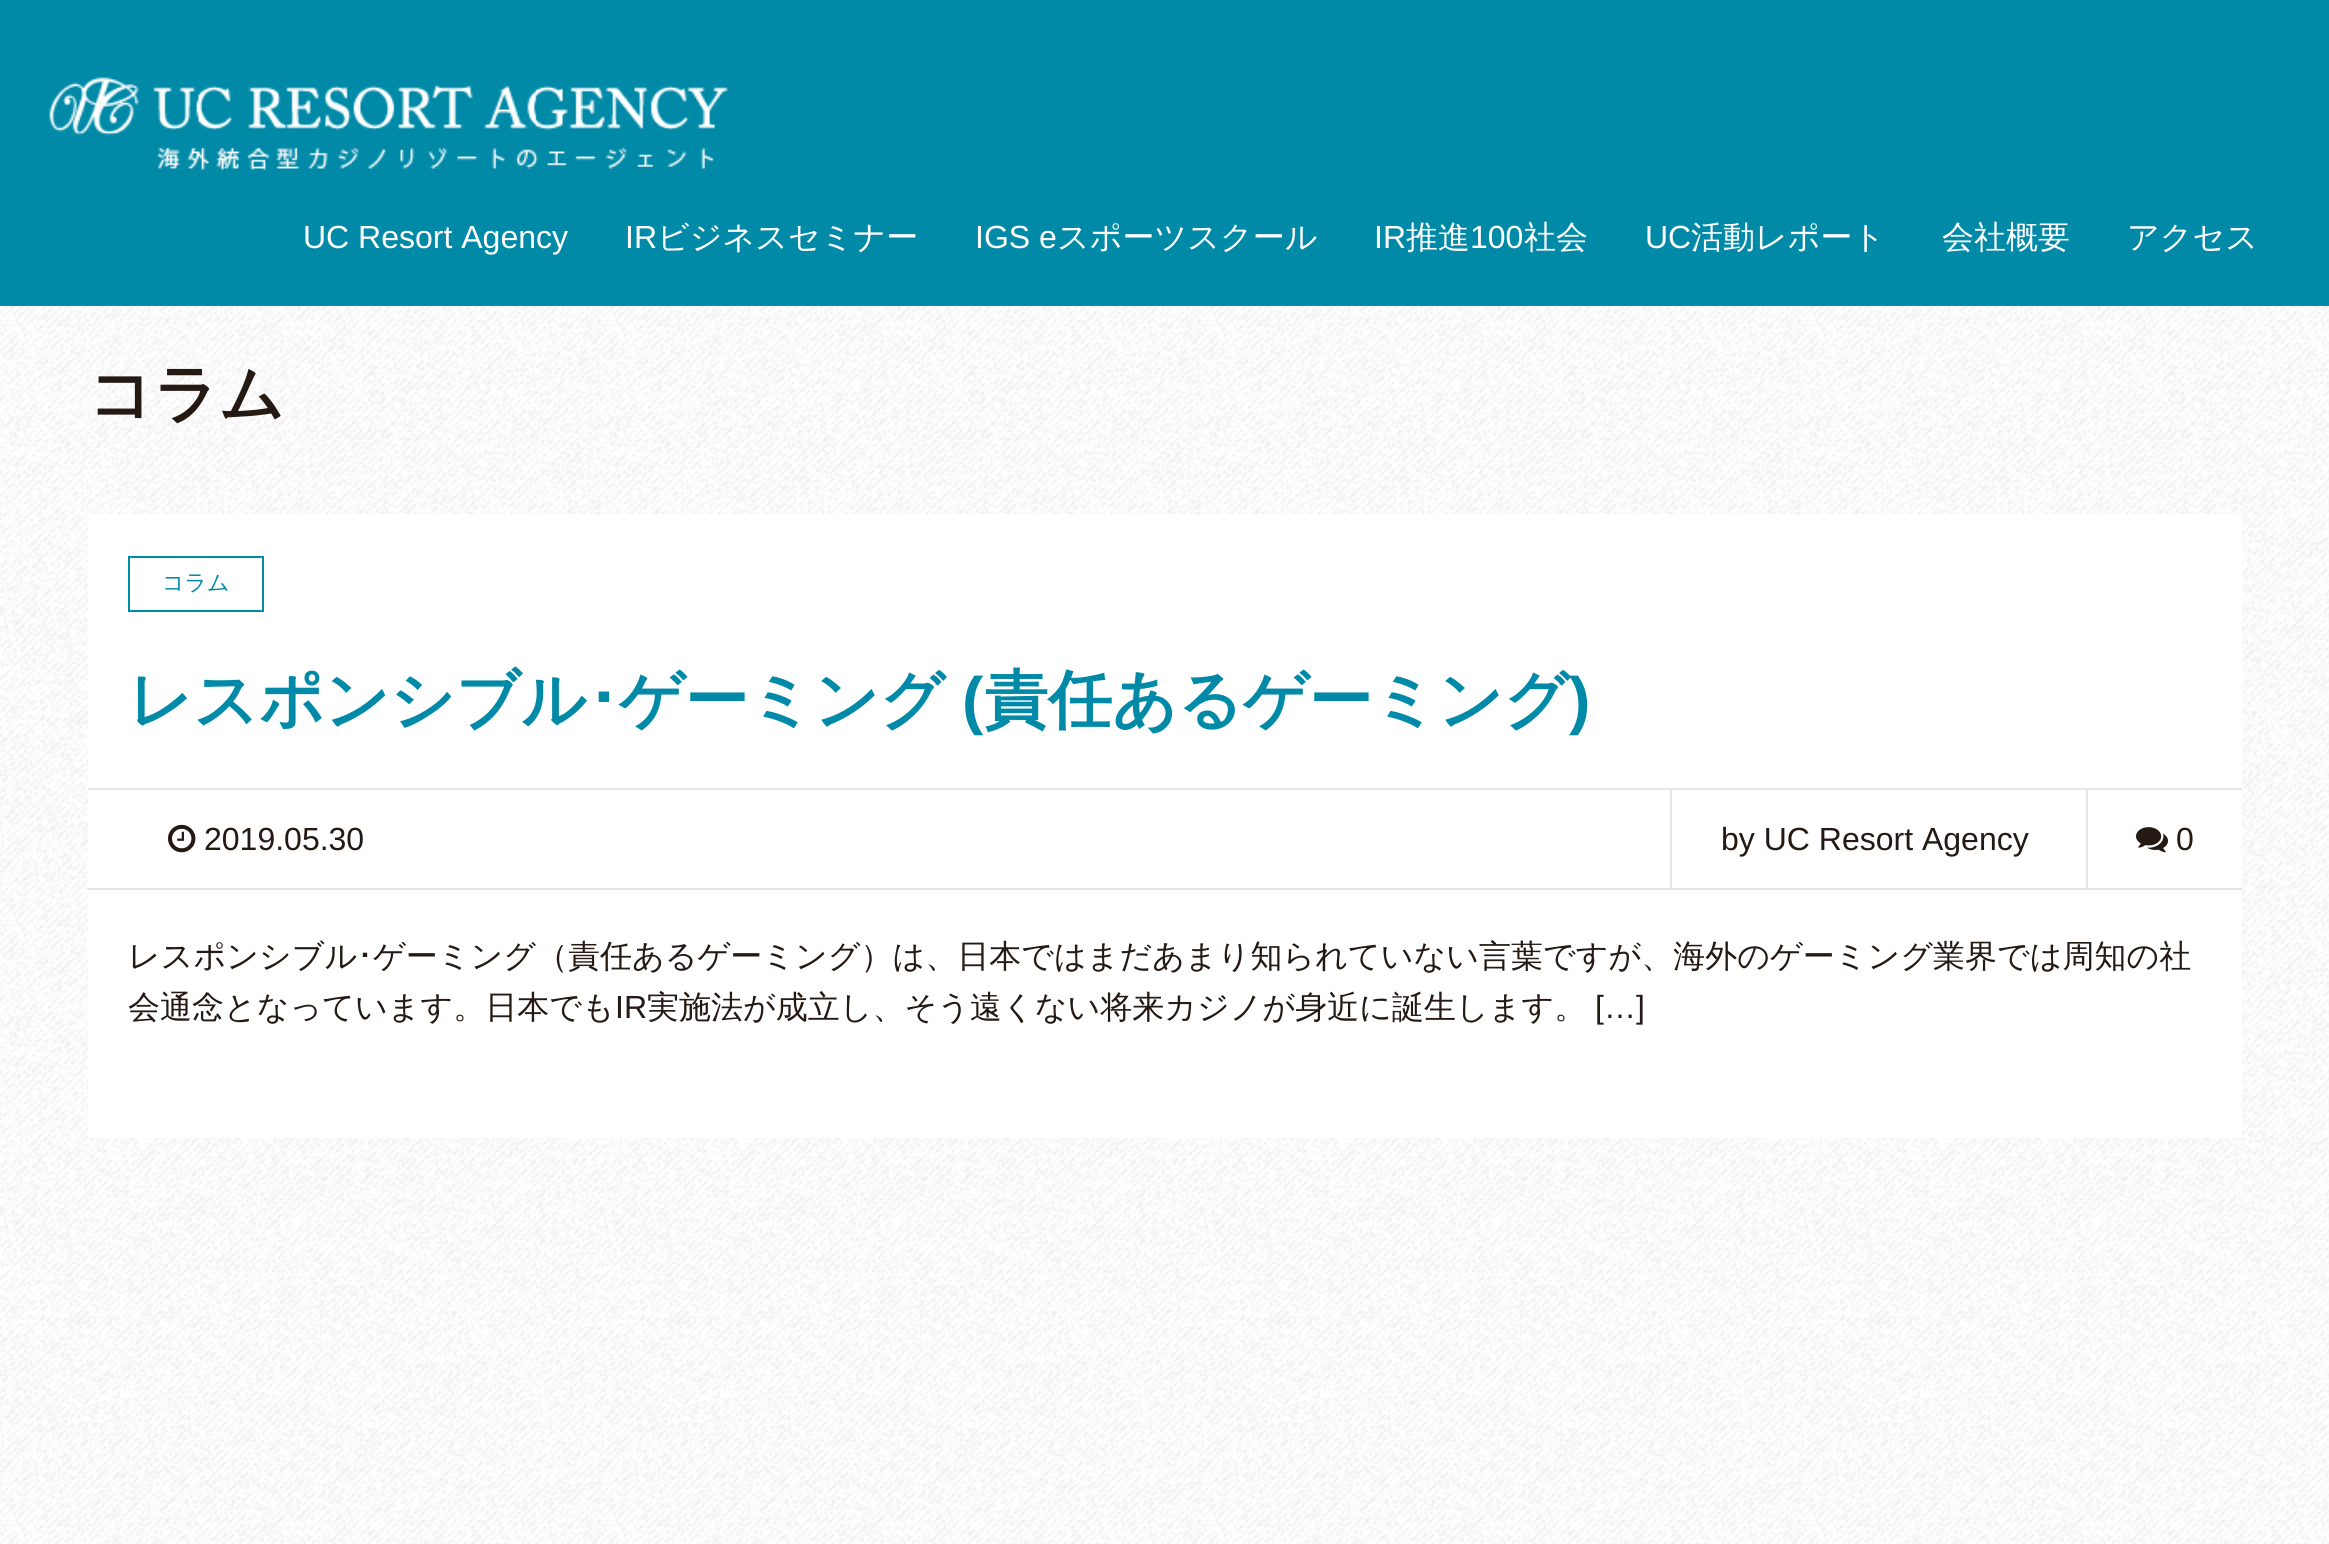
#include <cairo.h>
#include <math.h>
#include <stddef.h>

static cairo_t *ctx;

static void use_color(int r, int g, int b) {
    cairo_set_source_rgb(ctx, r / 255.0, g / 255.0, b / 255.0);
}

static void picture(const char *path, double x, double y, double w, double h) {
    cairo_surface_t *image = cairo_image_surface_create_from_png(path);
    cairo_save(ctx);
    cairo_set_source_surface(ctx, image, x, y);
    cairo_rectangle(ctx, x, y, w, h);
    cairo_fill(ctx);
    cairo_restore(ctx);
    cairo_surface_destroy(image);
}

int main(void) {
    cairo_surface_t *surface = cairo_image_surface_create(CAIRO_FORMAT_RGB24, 2329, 1544);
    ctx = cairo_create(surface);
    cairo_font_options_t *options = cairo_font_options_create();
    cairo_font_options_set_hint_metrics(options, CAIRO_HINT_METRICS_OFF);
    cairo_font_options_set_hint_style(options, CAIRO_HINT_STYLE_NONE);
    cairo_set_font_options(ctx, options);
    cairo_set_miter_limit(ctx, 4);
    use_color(255, 255, 255);
    cairo_paint(ctx);
    picture("img1.png", 0, 306, 2329, 1238);
    use_color(0, 138, 168);
    cairo_rectangle(ctx, 0, 0, 2329, 306);
    cairo_fill(ctx);
    picture("img2.png", 49, 76, 679, 94);
    cairo_select_font_face(ctx, "Liberation Sans", CAIRO_FONT_SLANT_NORMAL, CAIRO_FONT_WEIGHT_NORMAL);
    cairo_set_font_size(ctx, 32);
    use_color(255, 255, 255);
    cairo_move_to(ctx, 303, 248);
    cairo_show_text(ctx, "UC Resort Agency");
    cairo_move_to(ctx, 625, 248);
    cairo_show_text(ctx, "IR");
    cairo_select_font_face(ctx, "WenQuanYi Zen Hei Medium", CAIRO_FONT_SLANT_NORMAL, CAIRO_FONT_WEIGHT_NORMAL);
    cairo_move_to(ctx, 657, 248);
    cairo_show_text(ctx, "ビジネスセミナー");
    cairo_select_font_face(ctx, "Liberation Sans", CAIRO_FONT_SLANT_NORMAL, CAIRO_FONT_WEIGHT_NORMAL);
    cairo_move_to(ctx, 975, 248);
    cairo_show_text(ctx, "IGS e");
    cairo_select_font_face(ctx, "WenQuanYi Zen Hei Medium", CAIRO_FONT_SLANT_NORMAL, CAIRO_FONT_WEIGHT_NORMAL);
    cairo_move_to(ctx, 1057, 248);
    cairo_show_text(ctx, "スポーツスクール");
    cairo_select_font_face(ctx, "Liberation Sans", CAIRO_FONT_SLANT_NORMAL, CAIRO_FONT_WEIGHT_NORMAL);
    cairo_move_to(ctx, 1374, 248);
    cairo_show_text(ctx, "IR");
    cairo_select_font_face(ctx, "WenQuanYi Zen Hei Medium", CAIRO_FONT_SLANT_NORMAL, CAIRO_FONT_WEIGHT_NORMAL);
    cairo_move_to(ctx, 1406, 248);
    cairo_show_text(ctx, "推進");
    cairo_select_font_face(ctx, "Liberation Sans", CAIRO_FONT_SLANT_NORMAL, CAIRO_FONT_WEIGHT_NORMAL);
    cairo_move_to(ctx, 1470, 248);
    cairo_show_text(ctx, "100");
    cairo_select_font_face(ctx, "WenQuanYi Zen Hei Medium", CAIRO_FONT_SLANT_NORMAL, CAIRO_FONT_WEIGHT_NORMAL);
    cairo_move_to(ctx, 1524, 248);
    cairo_show_text(ctx, "社会");
    cairo_select_font_face(ctx, "Liberation Sans", CAIRO_FONT_SLANT_NORMAL, CAIRO_FONT_WEIGHT_NORMAL);
    cairo_move_to(ctx, 1645, 248);
    cairo_show_text(ctx, "UC");
    cairo_select_font_face(ctx, "WenQuanYi Zen Hei Medium", CAIRO_FONT_SLANT_NORMAL, CAIRO_FONT_WEIGHT_NORMAL);
    cairo_move_to(ctx, 1691, 248);
    cairo_show_text(ctx, "活動レポート");
    cairo_move_to(ctx, 1942, 248);
    cairo_show_text(ctx, "会社概要");
    cairo_move_to(ctx, 2127, 248);
    cairo_show_text(ctx, "アクセス");
    cairo_select_font_face(ctx, "WenQuanYi Zen Hei", CAIRO_FONT_SLANT_NORMAL, CAIRO_FONT_WEIGHT_BOLD);
    cairo_set_font_size(ctx, 64);
    use_color(36, 25, 19);
    cairo_move_to(ctx, 88, 416);
    cairo_show_text(ctx, "コラム");
    use_color(255, 255, 255);
    cairo_rectangle(ctx, 88, 514, 2154, 624);
    cairo_fill(ctx);
    use_color(229, 229, 229);
    cairo_rectangle(ctx, 88, 788, 2154, 2);
    cairo_fill(ctx);
    cairo_rectangle(ctx, 129, 557, 134, 54);
    use_color(0, 138, 168);
    cairo_stroke(ctx);
    cairo_select_font_face(ctx, "WenQuanYi Zen Hei Medium", CAIRO_FONT_SLANT_NORMAL, CAIRO_FONT_WEIGHT_NORMAL);
    cairo_set_font_size(ctx, 22);
    cairo_move_to(ctx, 162, 590);
    cairo_show_text(ctx, "コラム");
    cairo_select_font_face(ctx, "WenQuanYi Zen Hei", CAIRO_FONT_SLANT_NORMAL, CAIRO_FONT_WEIGHT_BOLD);
    cairo_set_font_size(ctx, 64);
    cairo_move_to(ctx, 128, 722);
    cairo_show_text(ctx, "レスポンシブル");
    cairo_select_font_face(ctx, "IPAPGothic", CAIRO_FONT_SLANT_NORMAL, CAIRO_FONT_WEIGHT_BOLD);
    cairo_move_to(ctx, 587, 722);
    cairo_show_text(ctx, "･");
    cairo_select_font_face(ctx, "WenQuanYi Zen Hei", CAIRO_FONT_SLANT_NORMAL, CAIRO_FONT_WEIGHT_BOLD);
    cairo_move_to(ctx, 619, 722);
    cairo_show_text(ctx, "ゲーミング");
    cairo_select_font_face(ctx, "Liberation Sans", CAIRO_FONT_SLANT_NORMAL, CAIRO_FONT_WEIGHT_BOLD);
    cairo_move_to(ctx, 962, 722);
    cairo_show_text(ctx, "(");
    cairo_select_font_face(ctx, "WenQuanYi Zen Hei", CAIRO_FONT_SLANT_NORMAL, CAIRO_FONT_WEIGHT_BOLD);
    cairo_move_to(ctx, 984, 722);
    cairo_show_text(ctx, "責任あるゲーミング");
    cairo_select_font_face(ctx, "Liberation Sans", CAIRO_FONT_SLANT_NORMAL, CAIRO_FONT_WEIGHT_BOLD);
    cairo_move_to(ctx, 1569, 722);
    cairo_show_text(ctx, ")");
    use_color(229, 229, 229);
    cairo_rectangle(ctx, 88, 888, 2154, 2);
    cairo_fill(ctx);
    picture("img3.png", 168, 824, 28, 29);
    cairo_select_font_face(ctx, "Liberation Sans", CAIRO_FONT_SLANT_NORMAL, CAIRO_FONT_WEIGHT_NORMAL);
    cairo_set_font_size(ctx, 32);
    use_color(36, 25, 19);
    cairo_move_to(ctx, 204, 850);
    cairo_show_text(ctx, "2019.05.30");
    use_color(229, 229, 229);
    cairo_rectangle(ctx, 1670, 790, 2, 98);
    cairo_fill(ctx);
    use_color(36, 25, 19);
    cairo_move_to(ctx, 1721, 850);
    cairo_show_text(ctx, "by UC Resort Agency");
    use_color(229, 229, 229);
    cairo_rectangle(ctx, 2086, 790, 2, 98);
    cairo_fill(ctx);
    picture("img4.png", 2136, 827, 32, 26);
    use_color(36, 25, 19);
    cairo_move_to(ctx, 2176, 850);
    cairo_show_text(ctx, "0");
    cairo_select_font_face(ctx, "WenQuanYi Zen Hei Medium", CAIRO_FONT_SLANT_NORMAL, CAIRO_FONT_WEIGHT_NORMAL);
    cairo_move_to(ctx, 128, 967);
    cairo_show_text(ctx, "レスポンシブル");
    cairo_select_font_face(ctx, "IPAPGothic", CAIRO_FONT_SLANT_NORMAL, CAIRO_FONT_WEIGHT_NORMAL);
    cairo_move_to(ctx, 357, 967);
    cairo_show_text(ctx, "･");
    cairo_select_font_face(ctx, "WenQuanYi Zen Hei Medium", CAIRO_FONT_SLANT_NORMAL, CAIRO_FONT_WEIGHT_NORMAL);
    cairo_move_to(ctx, 373, 967);
    cairo_show_text(ctx, "ゲーミング（責任あるゲーミング）は、日本ではまだあまり知られていない言葉ですが、海外のゲーミング業界では周知の社");
    cairo_move_to(ctx, 128, 1018);
    cairo_show_text(ctx, "会通念となっています。日本でも");
    cairo_select_font_face(ctx, "Liberation Sans", CAIRO_FONT_SLANT_NORMAL, CAIRO_FONT_WEIGHT_NORMAL);
    cairo_move_to(ctx, 615, 1018);
    cairo_show_text(ctx, "IR");
    cairo_select_font_face(ctx, "WenQuanYi Zen Hei Medium", CAIRO_FONT_SLANT_NORMAL, CAIRO_FONT_WEIGHT_NORMAL);
    cairo_move_to(ctx, 647, 1018);
    cairo_show_text(ctx, "実施法が成立し、そう遠くない将来カジノが身近に誕生します。");
    cairo_select_font_face(ctx, "Liberation Sans", CAIRO_FONT_SLANT_NORMAL, CAIRO_FONT_WEIGHT_NORMAL);
    cairo_move_to(ctx, 1595, 1018);
    cairo_show_text(ctx, "[…]");
    cairo_surface_write_to_png(surface, "result.png");
    cairo_font_options_destroy(options);
    cairo_destroy(ctx);
    cairo_surface_destroy(surface);
    return 0;
}
